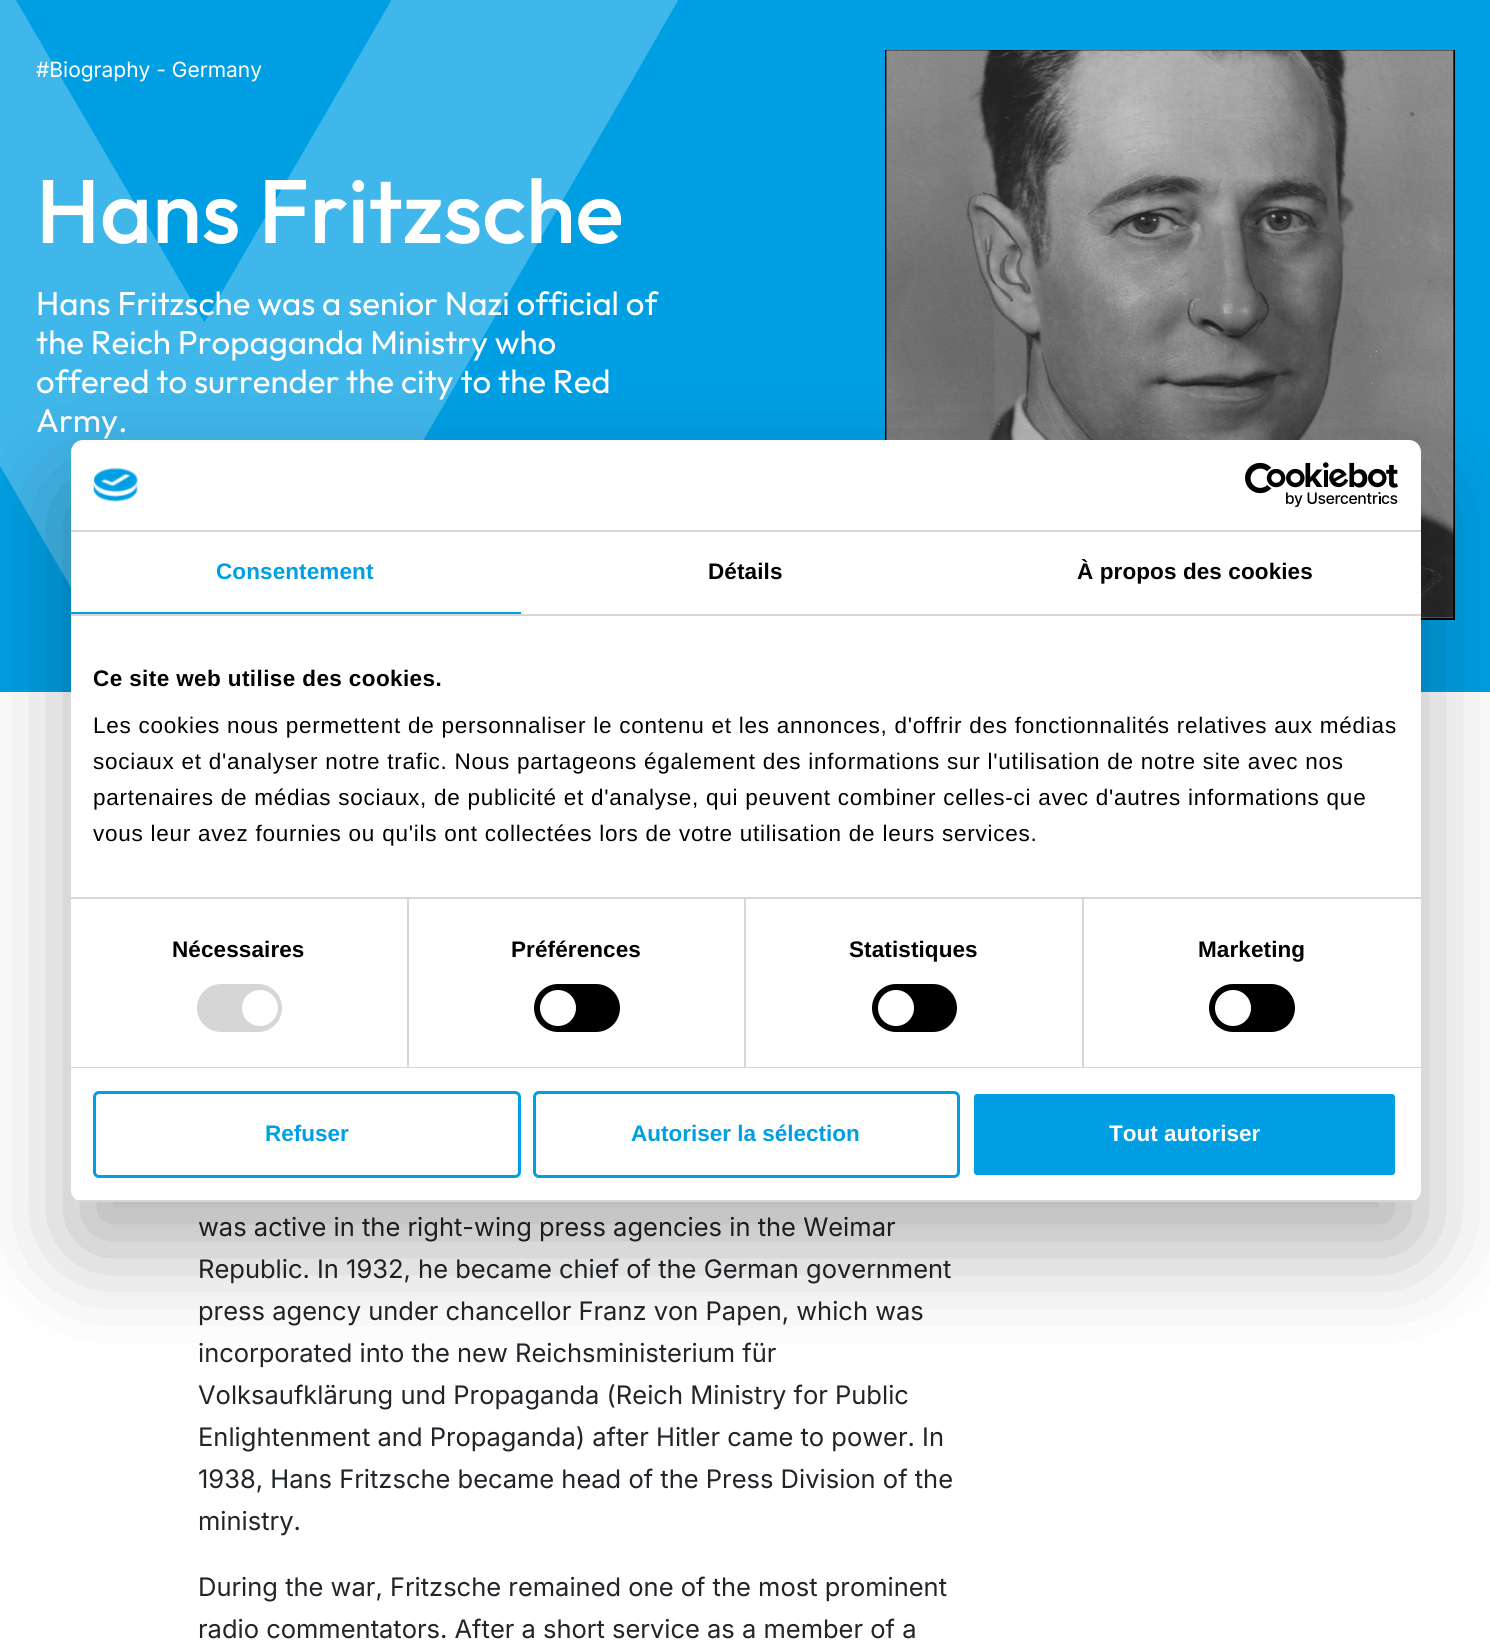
#include <cairo.h>
#include <math.h>
#include <stddef.h>

static cairo_t *ctx;

static void use_color(int r, int g, int b) {
    cairo_set_source_rgb(ctx, r / 255.0, g / 255.0, b / 255.0);
}

static void spaced_text(double x, double y, const char *s, double letter, double word) {
    cairo_move_to(ctx, x, y);
    while (*s) {
        char ch[5] = {0};
        int n = 0;
        do ch[n++] = *s++; while ((*s & 0xC0) == 0x80);
        cairo_show_text(ctx, ch);
        cairo_rel_move_to(ctx, letter + word * (*ch == ' '), 0);
    }
}

static void round_rect(double x, double y, double w, double h, double r) {
    cairo_new_sub_path(ctx);
    cairo_arc(ctx, x + w - r, y + h - r, r, 0, M_PI / 2);
    cairo_arc(ctx, x + r, y + h - r, r, M_PI / 2, M_PI);
    cairo_arc(ctx, x + r, y + r, r, M_PI, 1.5 * M_PI);
    cairo_arc(ctx, x + w - r, y + r, r, 1.5 * M_PI, 2 * M_PI);
    cairo_close_path(ctx);
}

static void shadow(double x, double y, double w, double h, double r, double blur, double alpha) {
    cairo_push_group_with_content(ctx, CAIRO_CONTENT_ALPHA);
    cairo_set_operator(ctx, CAIRO_OPERATOR_SOURCE);
    for (int i = 15; i >= -15 && fmin(w, h) + blur * i / 3 > 0; i -= 2) {
        double e = blur * i / 6;
        cairo_set_source_rgba(ctx, 0, 0, 0, alpha * erfc((i - 1) / 8.5) / 2);
        round_rect(x - e, y - e, w + 2 * e, h + 2 * e, fmax(0, fmin(r + e + blur * .6, fmin(w, h) / 2 + e)));
        cairo_fill(ctx);
    }
    cairo_pattern_t *soft = cairo_pop_group(ctx);
    cairo_mask(ctx, soft);
    cairo_pattern_destroy(soft);
}

static void picture(const char *path, double x, double y, double w, double h) {
    cairo_surface_t *image = cairo_image_surface_create_from_png(path);
    cairo_save(ctx);
    cairo_set_source_surface(ctx, image, x, y);
    cairo_rectangle(ctx, x, y, w, h);
    cairo_fill(ctx);
    cairo_restore(ctx);
    cairo_surface_destroy(image);
}

int main(void) {
    cairo_surface_t *surface = cairo_image_surface_create(CAIRO_FORMAT_RGB24, 1490, 1641);
    ctx = cairo_create(surface);
    cairo_font_options_t *options = cairo_font_options_create();
    cairo_font_options_set_hint_metrics(options, CAIRO_HINT_METRICS_OFF);
    cairo_font_options_set_hint_style(options, CAIRO_HINT_STYLE_NONE);
    cairo_set_font_options(ctx, options);
    cairo_set_miter_limit(ctx, 4);
    use_color(255, 255, 255);
    cairo_paint(ctx);
    use_color(0, 159, 227);
    cairo_rectangle(ctx, 0, 0, 1490, 692);
    cairo_fill(ctx);
    picture("img1.png", 0, 0, 678, 588);
    cairo_select_font_face(ctx, "Inter", CAIRO_FONT_SLANT_NORMAL, CAIRO_FONT_WEIGHT_NORMAL);
    cairo_set_font_size(ctx, 21);
    use_color(255, 255, 255);
    cairo_move_to(ctx, 36, 77);
    cairo_show_text(ctx, "#Biography - Germany");
    cairo_select_font_face(ctx, "Outfit Medium", CAIRO_FONT_SLANT_NORMAL, CAIRO_FONT_WEIGHT_NORMAL);
    cairo_set_font_size(ctx, 90);
    cairo_move_to(ctx, 36, 243);
    cairo_show_text(ctx, "Hans Fritzsche");
    cairo_select_font_face(ctx, "Outfit", CAIRO_FONT_SLANT_NORMAL, CAIRO_FONT_WEIGHT_NORMAL);
    cairo_set_font_size(ctx, 33);
    cairo_move_to(ctx, 36, 315);
    cairo_show_text(ctx, "Hans Fritzsche was a senior Nazi official of");
    cairo_move_to(ctx, 36, 354);
    cairo_show_text(ctx, "the Reich Propaganda Ministry who");
    cairo_move_to(ctx, 36, 393);
    cairo_show_text(ctx, "offered to surrender the city to the Red");
    cairo_move_to(ctx, 36, 432);
    cairo_show_text(ctx, "Army.");
    cairo_rectangle(ctx, 886, 51, 568, 568);
    use_color(0, 0, 0);
    cairo_stroke(ctx);
    picture("img2.png", 886, 50, 568, 568);
    cairo_select_font_face(ctx, "Inter", CAIRO_FONT_SLANT_NORMAL, CAIRO_FONT_WEIGHT_NORMAL);
    cairo_set_font_size(ctx, 25.5);
    use_color(33, 37, 41);
    cairo_move_to(ctx, 198, 1236);
    cairo_show_text(ctx, "was active in the right-wing press agencies in the Weimar");
    cairo_move_to(ctx, 198, 1278);
    cairo_show_text(ctx, "Republic. In 1932, he became chief of the German government");
    cairo_move_to(ctx, 198, 1320);
    cairo_show_text(ctx, "press agency under chancellor Franz von Papen, which was");
    cairo_move_to(ctx, 198, 1362);
    cairo_show_text(ctx, "incorporated into the new Reichsministerium für");
    cairo_move_to(ctx, 198, 1404);
    cairo_show_text(ctx, "Volksaufklärung und Propaganda (Reich Ministry for Public");
    cairo_move_to(ctx, 198, 1446);
    cairo_show_text(ctx, "Enlightenment and Propaganda) after Hitler came to power. In");
    cairo_move_to(ctx, 198, 1488);
    cairo_show_text(ctx, "1938, Hans Fritzsche became head of the Press Division of the");
    cairo_move_to(ctx, 198, 1530);
    cairo_show_text(ctx, "ministry.");
    cairo_move_to(ctx, 198, 1596);
    cairo_show_text(ctx, "During the war, Fritzsche remained one of the most prominent");
    cairo_move_to(ctx, 198, 1638);
    cairo_show_text(ctx, "radio commentators. After a short service as a member of a");
    use_color(0, 0, 0);
    shadow(71, 488, 1350, 762, 12, 51, 0.3);
    use_color(255, 255, 255);
    round_rect(71, 440, 1350, 762, 12);
    cairo_fill(ctx);
    use_color(214, 214, 214);
    cairo_rectangle(ctx, 71, 530, 1350, 2);
    cairo_fill(ctx);
    picture("img3.png", 93, 467, 45, 35);
    picture("img4.png", 1245, 462, 153, 45);
    cairo_rectangle(ctx, 71, 614, 1350, 2);
    cairo_fill(ctx);
    use_color(0, 159, 227);
    cairo_rectangle(ctx, 71, 612, 450, 2);
    cairo_fill(ctx);
    cairo_select_font_face(ctx, "Liberation Sans", CAIRO_FONT_SLANT_NORMAL, CAIRO_FONT_WEIGHT_BOLD);
    cairo_set_font_size(ctx, 22.5);
    spaced_text(216, 579, "Consentement", 0.1, 0);
    use_color(0, 0, 0);
    spaced_text(708, 579, "Détails", 0.1, 0);
    spaced_text(1077, 579, "À propos des cookies", 0.1, 0);
    use_color(214, 214, 214);
    cairo_rectangle(ctx, 71, 897, 1350, 2);
    cairo_fill(ctx);
    use_color(0, 0, 0);
    spaced_text(93, 686, "Ce site web utilise des cookies.", 0.4, 0);
    cairo_select_font_face(ctx, "Liberation Sans", CAIRO_FONT_SLANT_NORMAL, CAIRO_FONT_WEIGHT_NORMAL);
    spaced_text(93, 733, "Les cookies nous permettent de personnaliser le contenu et les annonces, d'offrir des fonctionnalités relatives aux médias", 0.75, 0);
    spaced_text(93, 769, "sociaux et d'analyser notre trafic. Nous partageons également des informations sur l'utilisation de notre site avec nos", 0.75, 0);
    spaced_text(93, 805, "partenaires de médias sociaux, de publicité et d'analyse, qui peuvent combiner celles-ci avec d'autres informations que", 0.75, 0);
    spaced_text(93, 841, "vous leur avez fournies ou qu'ils ont collectées lors de votre utilisation de leurs services.", 0.75, 0);
    use_color(214, 214, 214);
    cairo_rectangle(ctx, 71, 1067, 1350, 1);
    cairo_fill(ctx);
    cairo_rectangle(ctx, 407, 899, 2, 168);
    cairo_fill(ctx);
    cairo_select_font_face(ctx, "Liberation Sans", CAIRO_FONT_SLANT_NORMAL, CAIRO_FONT_WEIGHT_BOLD);
    use_color(0, 0, 0);
    spaced_text(172, 957, "Nécessaires", 0.1, 0);
    use_color(214, 214, 214);
    round_rect(197, 984, 85, 48, 24);
    cairo_fill(ctx);
    use_color(255, 255, 255);
    cairo_arc(ctx, 260, 1008, 18, 0, 2 * M_PI);
    cairo_fill(ctx);
    use_color(214, 214, 214);
    cairo_rectangle(ctx, 744, 899, 2, 168);
    cairo_fill(ctx);
    use_color(0, 0, 0);
    spaced_text(511, 957, "Préférences", 0.1, 0);
    round_rect(534, 984, 86, 48, 24);
    cairo_fill(ctx);
    use_color(255, 255, 255);
    cairo_arc(ctx, 558, 1008, 18, 0, 2 * M_PI);
    cairo_fill(ctx);
    use_color(214, 214, 214);
    cairo_rectangle(ctx, 1082, 899, 2, 168);
    cairo_fill(ctx);
    use_color(0, 0, 0);
    spaced_text(849, 957, "Statistiques", 0.1, 0);
    round_rect(872, 984, 85, 48, 24);
    cairo_fill(ctx);
    use_color(255, 255, 255);
    cairo_arc(ctx, 896, 1008, 18, 0, 2 * M_PI);
    cairo_fill(ctx);
    use_color(0, 0, 0);
    spaced_text(1198, 957, "Marketing", 0.1, 0);
    round_rect(1209, 984, 86, 48, 24);
    cairo_fill(ctx);
    use_color(255, 255, 255);
    cairo_arc(ctx, 1233, 1008, 18, 0, 2 * M_PI);
    cairo_fill(ctx);
    cairo_save(ctx);
    round_rect(71, 440, 1350, 762, 12);
    cairo_clip(ctx);
    use_color(214, 214, 214);
    cairo_rectangle(ctx, 71, 1200, 1350, 2);
    cairo_fill(ctx);
    cairo_restore(ctx);
    round_rect(94.5, 1092.5, 425, 84, 4.5);
    use_color(0, 159, 227);
    cairo_set_line_width(ctx, 3);
    cairo_stroke(ctx);
    cairo_move_to(ctx, 265, 1141);
    cairo_show_text(ctx, "Refuser");
    round_rect(534.5, 1092.5, 424, 84, 4.5);
    cairo_stroke(ctx);
    cairo_move_to(ctx, 631, 1141);
    cairo_show_text(ctx, "Autoriser la sélection");
    round_rect(972.5, 1092.5, 424, 84, 4.5);
    cairo_fill_preserve(ctx);
    use_color(255, 255, 255);
    cairo_stroke(ctx);
    cairo_move_to(ctx, 1109, 1141);
    cairo_show_text(ctx, "Tout autoriser");
    cairo_surface_write_to_png(surface, "result.png");
    cairo_font_options_destroy(options);
    cairo_destroy(ctx);
    cairo_surface_destroy(surface);
    return 0;
}
